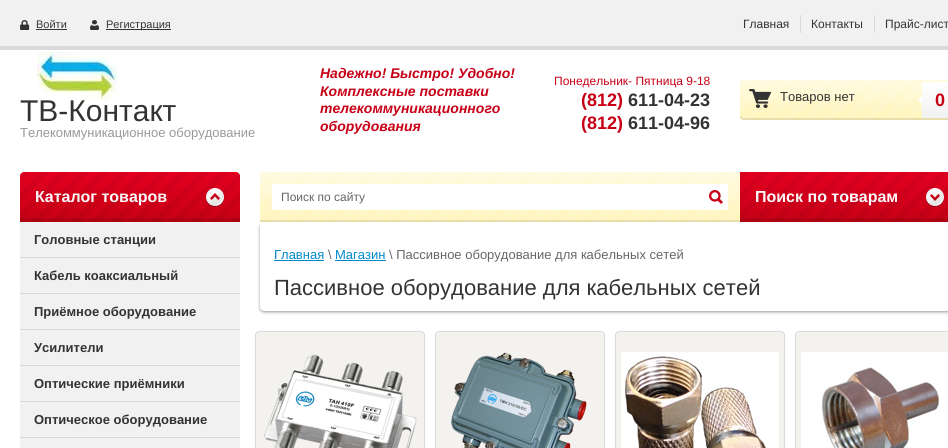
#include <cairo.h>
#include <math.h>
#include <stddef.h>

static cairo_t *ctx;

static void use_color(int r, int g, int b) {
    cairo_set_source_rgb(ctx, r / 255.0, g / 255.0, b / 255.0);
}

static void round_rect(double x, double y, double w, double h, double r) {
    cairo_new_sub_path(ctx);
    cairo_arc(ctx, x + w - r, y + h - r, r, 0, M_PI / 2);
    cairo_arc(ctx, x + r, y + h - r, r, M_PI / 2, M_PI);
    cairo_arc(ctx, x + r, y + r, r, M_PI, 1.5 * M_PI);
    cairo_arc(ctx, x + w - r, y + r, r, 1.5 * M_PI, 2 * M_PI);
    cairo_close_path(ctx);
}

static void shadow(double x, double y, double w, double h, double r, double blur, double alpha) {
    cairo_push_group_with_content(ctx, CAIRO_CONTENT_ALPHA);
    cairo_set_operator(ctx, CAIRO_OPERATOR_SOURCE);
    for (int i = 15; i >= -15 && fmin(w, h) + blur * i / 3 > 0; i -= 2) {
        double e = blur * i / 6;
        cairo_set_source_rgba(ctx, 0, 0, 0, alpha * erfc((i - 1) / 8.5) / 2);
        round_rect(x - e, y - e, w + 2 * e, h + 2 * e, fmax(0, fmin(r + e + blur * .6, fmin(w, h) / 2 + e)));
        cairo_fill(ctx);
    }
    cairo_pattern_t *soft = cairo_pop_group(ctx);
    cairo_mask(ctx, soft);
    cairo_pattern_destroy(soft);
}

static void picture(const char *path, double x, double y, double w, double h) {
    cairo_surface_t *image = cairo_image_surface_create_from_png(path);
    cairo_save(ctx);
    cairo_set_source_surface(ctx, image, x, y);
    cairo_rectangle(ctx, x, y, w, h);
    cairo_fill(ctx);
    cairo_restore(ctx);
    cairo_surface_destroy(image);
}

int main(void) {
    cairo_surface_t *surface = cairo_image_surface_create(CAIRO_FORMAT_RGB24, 948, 448);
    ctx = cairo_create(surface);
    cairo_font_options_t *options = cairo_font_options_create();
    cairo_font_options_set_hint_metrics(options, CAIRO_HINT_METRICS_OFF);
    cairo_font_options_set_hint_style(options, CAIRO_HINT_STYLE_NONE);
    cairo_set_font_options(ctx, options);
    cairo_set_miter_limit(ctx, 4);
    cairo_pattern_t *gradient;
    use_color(255, 255, 255);
    cairo_paint(ctx);
    use_color(241, 241, 241);
    cairo_rectangle(ctx, 0, 0, 948, 46);
    cairo_fill(ctx);
    use_color(218, 218, 218);
    cairo_rectangle(ctx, 0, 46, 948, 4);
    cairo_fill(ctx);
    picture("img1.png", 20, 20, 10, 10);
    cairo_select_font_face(ctx, "Liberation Sans", CAIRO_FONT_SLANT_NORMAL, CAIRO_FONT_WEIGHT_NORMAL);
    cairo_set_font_size(ctx, 11);
    use_color(51, 51, 51);
    cairo_move_to(ctx, 36, 28);
    cairo_show_text(ctx, "Войти");
    cairo_rectangle(ctx, 36, 29, 31, 1);
    cairo_fill(ctx);
    picture("img2.png", 90, 20, 9, 10);
    cairo_rectangle(ctx, 106, 29, 65, 1);
    cairo_fill(ctx);
    cairo_move_to(ctx, 106, 28);
    cairo_show_text(ctx, "Регистрация");
    cairo_set_font_size(ctx, 12);
    cairo_move_to(ctx, 743, 28);
    cairo_show_text(ctx, "Главная");
    use_color(217, 217, 217);
    cairo_rectangle(ctx, 800, 15, 1, 18);
    cairo_fill(ctx);
    use_color(51, 51, 51);
    cairo_move_to(ctx, 811, 28);
    cairo_show_text(ctx, "Контакты");
    use_color(217, 217, 217);
    cairo_rectangle(ctx, 874, 15, 1, 18);
    cairo_fill(ctx);
    use_color(51, 51, 51);
    cairo_move_to(ctx, 885, 28);
    cairo_show_text(ctx, "Прайс-лист");
    picture("img3.png", 37, 52, 81, 48);
    cairo_set_font_size(ctx, 30);
    cairo_move_to(ctx, 20, 121);
    cairo_show_text(ctx, "ТВ-Контакт");
    cairo_set_font_size(ctx, 13);
    use_color(153, 153, 153);
    cairo_move_to(ctx, 20, 137);
    cairo_show_text(ctx, "Телекоммуникационное оборудование");
    cairo_select_font_face(ctx, "Liberation Sans", CAIRO_FONT_SLANT_ITALIC, CAIRO_FONT_WEIGHT_BOLD);
    cairo_set_font_size(ctx, 14);
    use_color(199, 0, 22);
    cairo_move_to(ctx, 320, 78);
    cairo_show_text(ctx, "Надежно! Быстро! Удобно!");
    cairo_move_to(ctx, 320, 96);
    cairo_show_text(ctx, "Комплексные поставки");
    cairo_move_to(ctx, 320, 113);
    cairo_show_text(ctx, "телекоммуникационного");
    cairo_move_to(ctx, 320, 131);
    cairo_show_text(ctx, "оборудования");
    cairo_select_font_face(ctx, "Liberation Sans", CAIRO_FONT_SLANT_NORMAL, CAIRO_FONT_WEIGHT_NORMAL);
    cairo_set_font_size(ctx, 12);
    cairo_move_to(ctx, 554, 85);
    cairo_show_text(ctx, "Понедельник- Пятница 9-18");
    cairo_select_font_face(ctx, "Liberation Sans", CAIRO_FONT_SLANT_NORMAL, CAIRO_FONT_WEIGHT_BOLD);
    cairo_set_font_size(ctx, 18);
    cairo_move_to(ctx, 581, 106);
    cairo_show_text(ctx, "(812)");
    use_color(51, 51, 51);
    cairo_move_to(ctx, 628, 106);
    cairo_show_text(ctx, "611-04-23");
    use_color(199, 0, 22);
    cairo_move_to(ctx, 581, 129);
    cairo_show_text(ctx, "(812)");
    use_color(51, 51, 51);
    cairo_move_to(ctx, 628, 129);
    cairo_show_text(ctx, "611-04-96");
    picture("img4.png", 740, 80, 208, 40);
    cairo_set_source_rgba(ctx, 0, 0, 0, 0.1);
    cairo_new_path(ctx);
    cairo_move_to(ctx, 740, 114);
    cairo_curve_to(ctx, 740, 117, 740, 119, 743, 120);
    cairo_line_to(ctx, 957, 120);
    cairo_curve_to(ctx, 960, 119, 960, 117, 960, 114);
    cairo_curve_to(ctx, 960, 116, 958, 118, 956, 118);
    cairo_line_to(ctx, 744, 118);
    cairo_curve_to(ctx, 742, 118, 740, 116, 740, 114);
    cairo_close_path(ctx);
    cairo_fill(ctx);
    picture("img5.png", 749, 89, 22, 19);
    cairo_select_font_face(ctx, "Liberation Sans", CAIRO_FONT_SLANT_NORMAL, CAIRO_FONT_WEIGHT_NORMAL);
    cairo_set_font_size(ctx, 13);
    use_color(51, 51, 51);
    cairo_move_to(ctx, 780, 101);
    cairo_show_text(ctx, "Товаров нет");
    gradient = cairo_pattern_create_linear(940, 118, 940, 82);
    cairo_pattern_add_color_stop_rgba(gradient, 0, 0.945, 0.945, 0.945, 1);
    cairo_pattern_add_color_stop_rgba(gradient, 1, 1, 1, 1, 1);
    cairo_set_source(ctx, gradient);
    cairo_pattern_destroy(gradient);
    cairo_rectangle(ctx, 922, 82, 26, 36);
    cairo_fill(ctx);
    use_color(255, 255, 255);
    cairo_new_path(ctx);
    cairo_move_to(ctx, 922, 96);
    cairo_line_to(ctx, 922, 104);
    cairo_line_to(ctx, 918, 100);
    cairo_close_path(ctx);
    cairo_fill(ctx);
    cairo_select_font_face(ctx, "Liberation Sans", CAIRO_FONT_SLANT_NORMAL, CAIRO_FONT_WEIGHT_BOLD);
    cairo_set_font_size(ctx, 18);
    use_color(199, 0, 22);
    cairo_move_to(ctx, 935, 106);
    cairo_show_text(ctx, "0");
    gradient = cairo_pattern_create_linear(130, 172, 130, 222);
    cairo_pattern_add_color_stop_rgba(gradient, 0, 0.89, 0, 0.125, 1);
    cairo_pattern_add_color_stop_rgba(gradient, 1, 0.78, 0, 0.082, 1);
    cairo_set_source(ctx, gradient);
    cairo_pattern_destroy(gradient);
    cairo_new_path(ctx);
    cairo_move_to(ctx, 24, 172);
    cairo_line_to(ctx, 236, 172);
    cairo_curve_to(ctx, 238, 172, 240, 174, 240, 176);
    cairo_line_to(ctx, 240, 222);
    cairo_line_to(ctx, 20, 222);
    cairo_line_to(ctx, 20, 176);
    cairo_curve_to(ctx, 20, 174, 22, 172, 24, 172);
    cairo_close_path(ctx);
    cairo_fill(ctx);
    use_color(180, 0, 19);
    cairo_rectangle(ctx, 20, 218, 220, 4);
    cairo_fill(ctx);
    cairo_set_font_size(ctx, 16);
    use_color(255, 255, 255);
    cairo_move_to(ctx, 35, 202);
    cairo_show_text(ctx, "Каталог товаров");
    picture("img7.png", 206, 188, 18, 19);
    picture("img6.png", 20, 172, 220, 50);
    use_color(241, 241, 241);
    cairo_rectangle(ctx, 20, 222, 220, 226);
    cairo_fill(ctx);
    use_color(216, 216, 216);
    cairo_rectangle(ctx, 20, 257, 220, 1);
    cairo_fill(ctx);
    cairo_set_font_size(ctx, 13);
    use_color(51, 51, 51);
    cairo_move_to(ctx, 34, 244);
    cairo_show_text(ctx, "Головные станции");
    use_color(216, 216, 216);
    cairo_rectangle(ctx, 20, 293, 220, 1);
    cairo_fill(ctx);
    use_color(51, 51, 51);
    cairo_move_to(ctx, 34, 280);
    cairo_show_text(ctx, "Кабель коаксиальный");
    use_color(216, 216, 216);
    cairo_rectangle(ctx, 20, 329, 220, 1);
    cairo_fill(ctx);
    use_color(51, 51, 51);
    cairo_move_to(ctx, 34, 316);
    cairo_show_text(ctx, "Приёмное оборудование");
    use_color(216, 216, 216);
    cairo_rectangle(ctx, 20, 365, 220, 1);
    cairo_fill(ctx);
    use_color(51, 51, 51);
    cairo_move_to(ctx, 34, 352);
    cairo_show_text(ctx, "Усилители");
    use_color(216, 216, 216);
    cairo_rectangle(ctx, 20, 401, 220, 1);
    cairo_fill(ctx);
    use_color(51, 51, 51);
    cairo_move_to(ctx, 34, 388);
    cairo_show_text(ctx, "Оптические приёмники");
    use_color(216, 216, 216);
    cairo_rectangle(ctx, 20, 437, 220, 1);
    cairo_fill(ctx);
    use_color(51, 51, 51);
    cairo_move_to(ctx, 34, 424);
    cairo_show_text(ctx, "Оптическое оборудование");
    use_color(0, 0, 0);
    shadow(260, 223, 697, 89, 4, 1.5, 0.4);
    picture("img8.png", 260, 172, 480, 50);
    cairo_set_source_rgba(ctx, 0, 0, 0, 0.1);
    cairo_rectangle(ctx, 260, 220, 480, 2);
    cairo_fill(ctx);
    use_color(255, 255, 255);
    round_rect(272, 184, 456, 26, 2);
    cairo_fill(ctx);
    gradient = cairo_pattern_create_linear(500, 210, 500, 184);
    cairo_pattern_add_color_stop_rgba(gradient, 0, 1, 1, 1, 1);
    cairo_pattern_add_color_stop_rgba(gradient, 1, 1, 1, 1, 0);
    cairo_set_source(ctx, gradient);
    cairo_pattern_destroy(gradient);
    round_rect(272, 184, 456, 26, 2);
    cairo_fill(ctx);
    cairo_select_font_face(ctx, "Liberation Sans", CAIRO_FONT_SLANT_NORMAL, CAIRO_FONT_WEIGHT_NORMAL);
    cairo_set_font_size(ctx, 12);
    use_color(102, 102, 102);
    cairo_move_to(ctx, 281, 201);
    cairo_show_text(ctx, "Поиск по сайту");
    picture("img9.png", 709, 190, 14, 14);
    gradient = cairo_pattern_create_linear(850, 172, 850, 222);
    cairo_pattern_add_color_stop_rgba(gradient, 0, 0.89, 0, 0.129, 1);
    cairo_pattern_add_color_stop_rgba(gradient, 1, 0.78, 0, 0.086, 1);
    cairo_set_source(ctx, gradient);
    cairo_pattern_destroy(gradient);
    cairo_rectangle(ctx, 740, 172, 208, 46);
    cairo_fill(ctx);
    use_color(180, 0, 20);
    cairo_rectangle(ctx, 740, 218, 208, 4);
    cairo_fill(ctx);
    cairo_select_font_face(ctx, "Liberation Sans", CAIRO_FONT_SLANT_NORMAL, CAIRO_FONT_WEIGHT_BOLD);
    cairo_set_font_size(ctx, 16);
    use_color(255, 255, 255);
    cairo_move_to(ctx, 755, 202);
    cairo_show_text(ctx, "Поиск по товарам");
    picture("img11.png", 926, 188, 18, 19);
    picture("img10.png", 740, 172, 208, 50);
    cairo_new_path(ctx);
    cairo_move_to(ctx, 260, 222);
    cairo_line_to(ctx, 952, 222);
    cairo_line_to(ctx, 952, 307);
    cairo_curve_to(ctx, 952, 309, 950, 311, 948, 311);
    cairo_line_to(ctx, 264, 311);
    cairo_curve_to(ctx, 262, 311, 260, 309, 260, 307);
    cairo_close_path(ctx);
    cairo_fill(ctx);
    cairo_select_font_face(ctx, "Liberation Sans", CAIRO_FONT_SLANT_NORMAL, CAIRO_FONT_WEIGHT_NORMAL);
    cairo_set_font_size(ctx, 13);
    use_color(0, 136, 204);
    cairo_move_to(ctx, 274, 259);
    cairo_show_text(ctx, "Главная");
    cairo_rectangle(ctx, 274, 260, 50, 1);
    cairo_fill(ctx);
    use_color(102, 102, 102);
    cairo_move_to(ctx, 328, 259);
    cairo_show_text(ctx, "\\");
    use_color(0, 136, 204);
    cairo_move_to(ctx, 335, 259);
    cairo_show_text(ctx, "Магазин");
    cairo_rectangle(ctx, 335, 260, 51, 1);
    cairo_fill(ctx);
    use_color(102, 102, 102);
    cairo_move_to(ctx, 389, 259);
    cairo_show_text(ctx, "\\ Пассивное оборудование для кабельных сетей");
    cairo_set_font_size(ctx, 22);
    use_color(51, 51, 51);
    cairo_move_to(ctx, 274, 295);
    cairo_show_text(ctx, "Пассивное оборудование для кабельных сетей");
    use_color(244, 242, 238);
    round_rect(255.5, 331.5, 169, 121, 3.5);
    cairo_fill_preserve(ctx);
    use_color(217, 220, 221);
    cairo_set_line_width(ctx, 1);
    cairo_stroke(ctx);
    picture("img12.png", 264, 354, 153, 94);
    use_color(244, 242, 238);
    round_rect(435.5, 331.5, 169, 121, 3.5);
    cairo_fill_preserve(ctx);
    use_color(217, 220, 221);
    cairo_stroke(ctx);
    picture("img13.png", 451, 352, 136, 96);
    use_color(244, 242, 238);
    round_rect(615.5, 331.5, 169, 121, 3.5);
    cairo_fill_preserve(ctx);
    use_color(217, 220, 221);
    cairo_stroke(ctx);
    picture("img14.png", 621, 352, 158, 96);
    use_color(244, 242, 238);
    round_rect(795.5, 331.5, 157, 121, 3.5);
    cairo_fill_preserve(ctx);
    use_color(217, 220, 221);
    cairo_stroke(ctx);
    picture("img15.png", 801, 352, 147, 96);
    cairo_surface_write_to_png(surface, "result.png");
    cairo_font_options_destroy(options);
    cairo_destroy(ctx);
    cairo_surface_destroy(surface);
    return 0;
}
